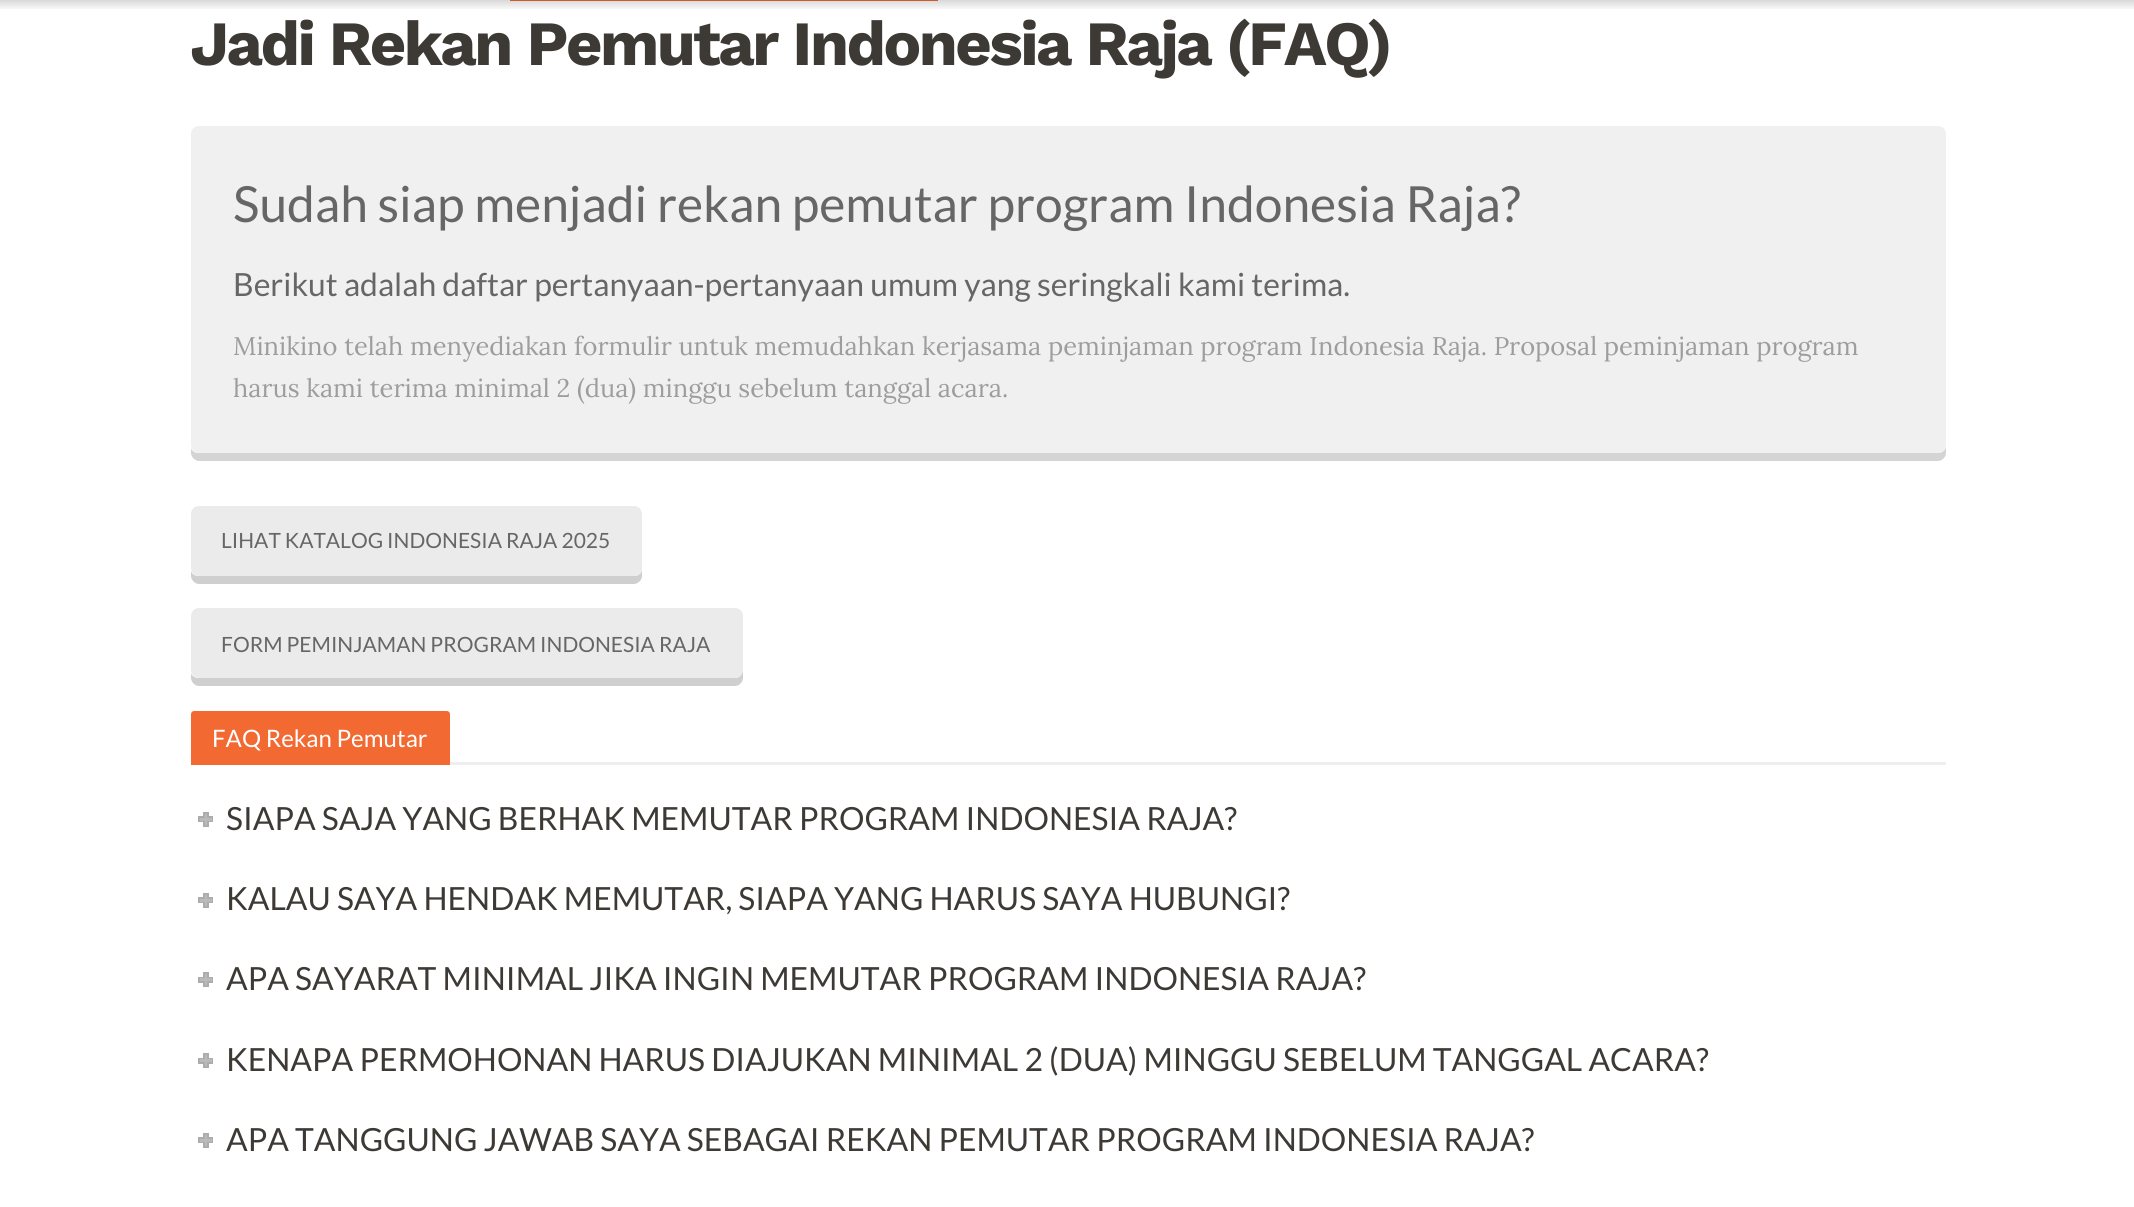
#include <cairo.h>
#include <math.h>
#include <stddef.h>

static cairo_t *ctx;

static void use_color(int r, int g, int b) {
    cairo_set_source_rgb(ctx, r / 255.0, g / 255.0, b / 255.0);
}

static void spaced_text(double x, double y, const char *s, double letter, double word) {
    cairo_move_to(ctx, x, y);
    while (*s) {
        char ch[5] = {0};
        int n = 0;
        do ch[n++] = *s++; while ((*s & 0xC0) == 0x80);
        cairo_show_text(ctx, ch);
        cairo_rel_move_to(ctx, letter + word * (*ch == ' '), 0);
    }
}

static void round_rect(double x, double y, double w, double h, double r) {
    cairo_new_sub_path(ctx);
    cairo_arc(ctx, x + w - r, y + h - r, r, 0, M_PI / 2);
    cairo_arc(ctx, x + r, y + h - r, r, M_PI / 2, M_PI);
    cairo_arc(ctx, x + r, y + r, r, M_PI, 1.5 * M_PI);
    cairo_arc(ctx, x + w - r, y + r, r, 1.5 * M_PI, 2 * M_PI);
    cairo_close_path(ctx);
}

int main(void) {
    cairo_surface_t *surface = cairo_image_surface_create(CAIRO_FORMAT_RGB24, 2134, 1207);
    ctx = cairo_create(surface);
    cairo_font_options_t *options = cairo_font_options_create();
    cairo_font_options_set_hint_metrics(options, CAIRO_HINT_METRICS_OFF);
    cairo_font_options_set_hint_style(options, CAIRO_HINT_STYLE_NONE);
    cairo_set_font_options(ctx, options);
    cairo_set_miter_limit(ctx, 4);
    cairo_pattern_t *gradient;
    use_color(255, 255, 255);
    cairo_paint(ctx);
    use_color(242, 105, 50);
    cairo_rectangle(ctx, 510, 0, 428, 1);
    cairo_fill(ctx);
    gradient = cairo_pattern_create_linear(1067, 0, 1067, 11);
    cairo_pattern_add_color_stop_rgba(gradient, 0, 0, 0, 0, 0.15);
    cairo_pattern_add_color_stop_rgba(gradient, 1, 0, 0, 0, 0);
    cairo_set_source(ctx, gradient);
    cairo_pattern_destroy(gradient);
    cairo_rectangle(ctx, 0, 0, 2134, 9);
    cairo_fill(ctx);
    cairo_select_font_face(ctx, "Work Sans", CAIRO_FONT_SLANT_NORMAL, CAIRO_FONT_WEIGHT_BOLD);
    cairo_set_font_size(ctx, 63);
    use_color(61, 57, 53);
    spaced_text(190, 65, "Jadi Rekan Pemutar Indonesia Raja (FAQ)", -2.5, 0);
    use_color(212, 212, 212);
    cairo_new_path(ctx);
    cairo_move_to(ctx, 191, 448);
    cairo_line_to(ctx, 191, 453);
    cairo_curve_to(ctx, 191, 457, 195, 461, 199, 461);
    cairo_line_to(ctx, 1938, 461);
    cairo_curve_to(ctx, 1942, 461, 1946, 457, 1946, 453);
    cairo_line_to(ctx, 1946, 142);
    cairo_line_to(ctx, 1946, 139);
    cairo_line_to(ctx, 1946, 446);
    cairo_curve_to(ctx, 1946, 450, 1942, 453, 1938, 453);
    cairo_line_to(ctx, 198, 453);
    cairo_curve_to(ctx, 195, 453, 192, 451, 191, 448);
    cairo_close_path(ctx);
    cairo_fill(ctx);
    use_color(240, 240, 240);
    round_rect(191, 126, 1755, 327, 8);
    cairo_fill(ctx);
    cairo_select_font_face(ctx, "Lato", CAIRO_FONT_SLANT_NORMAL, CAIRO_FONT_WEIGHT_NORMAL);
    cairo_set_font_size(ctx, 49.8);
    use_color(102, 102, 102);
    cairo_move_to(ctx, 233, 222);
    cairo_show_text(ctx, "Sudah siap menjadi rekan pemutar program Indonesia Raja?");
    cairo_set_font_size(ctx, 31.9);
    cairo_move_to(ctx, 233, 296);
    cairo_show_text(ctx, "Berikut adalah daftar pertanyaan-pertanyaan umum yang seringkali kami terima.");
    cairo_select_font_face(ctx, "Lora", CAIRO_FONT_SLANT_NORMAL, CAIRO_FONT_WEIGHT_NORMAL);
    cairo_set_font_size(ctx, 25.5);
    use_color(157, 157, 158);
    cairo_move_to(ctx, 233, 355);
    cairo_show_text(ctx, "Minikino telah menyediakan formulir untuk memudahkan kerjasama peminjaman program Indonesia Raja. Proposal peminjaman program");
    cairo_move_to(ctx, 233, 397);
    cairo_show_text(ctx, "harus kami terima minimal 2 (dua) minggu sebelum tanggal acara.");
    use_color(207, 207, 207);
    cairo_new_path(ctx);
    cairo_move_to(ctx, 191, 571);
    cairo_line_to(ctx, 191, 576);
    cairo_curve_to(ctx, 191, 580, 195, 584, 199, 584);
    cairo_line_to(ctx, 634, 584);
    cairo_curve_to(ctx, 638, 584, 642, 580, 642, 576);
    cairo_line_to(ctx, 642, 568);
    cairo_curve_to(ctx, 642, 573, 639, 576, 634, 576);
    cairo_line_to(ctx, 198, 576);
    cairo_curve_to(ctx, 195, 576, 192, 574, 191, 571);
    cairo_close_path(ctx);
    cairo_fill(ctx);
    use_color(235, 235, 235);
    round_rect(191, 506, 451, 70, 8);
    cairo_fill(ctx);
    cairo_select_font_face(ctx, "Lato", CAIRO_FONT_SLANT_NORMAL, CAIRO_FONT_WEIGHT_NORMAL);
    cairo_set_font_size(ctx, 21);
    use_color(102, 102, 102);
    cairo_move_to(ctx, 221, 548);
    cairo_show_text(ctx, "LIHAT KATALOG INDONESIA RAJA 2025");
    use_color(207, 207, 207);
    cairo_new_path(ctx);
    cairo_move_to(ctx, 191, 673);
    cairo_line_to(ctx, 191, 678);
    cairo_curve_to(ctx, 191, 682, 195, 686, 199, 686);
    cairo_line_to(ctx, 735, 686);
    cairo_curve_to(ctx, 739, 686, 743, 682, 743, 678);
    cairo_line_to(ctx, 743, 623);
    cairo_line_to(ctx, 742, 620);
    cairo_line_to(ctx, 742, 670);
    cairo_curve_to(ctx, 742, 675, 739, 678, 735, 678);
    cairo_line_to(ctx, 198, 678);
    cairo_curve_to(ctx, 195, 678, 192, 676, 191, 673);
    cairo_close_path(ctx);
    cairo_fill(ctx);
    use_color(235, 235, 235);
    round_rect(191, 608, 552, 70, 8);
    cairo_fill(ctx);
    use_color(102, 102, 102);
    cairo_move_to(ctx, 221, 652);
    cairo_show_text(ctx, "FORM PEMINJAMAN PROGRAM INDONESIA RAJA");
    use_color(238, 238, 238);
    cairo_rectangle(ctx, 450, 762, 1496, 3);
    cairo_fill(ctx);
    use_color(242, 105, 50);
    cairo_new_path(ctx);
    cairo_move_to(ctx, 194, 711);
    cairo_line_to(ctx, 447, 711);
    cairo_curve_to(ctx, 448.5, 711, 450, 712.5, 450, 714);
    cairo_line_to(ctx, 450, 765);
    cairo_line_to(ctx, 191, 765);
    cairo_line_to(ctx, 191, 714);
    cairo_curve_to(ctx, 191, 712.5, 192.5, 711, 194, 711);
    cairo_close_path(ctx);
    cairo_fill(ctx);
    cairo_set_font_size(ctx, 24);
    use_color(255, 255, 255);
    cairo_move_to(ctx, 212, 747);
    cairo_show_text(ctx, "FAQ Rekan Pemutar");
    cairo_rectangle(ctx, 199, 817, 13, 4);
    use_color(172, 172, 172);
    cairo_stroke(ctx);
    use_color(186, 186, 186);
    cairo_rectangle(ctx, 204, 813, 4, 13);
    cairo_fill_preserve(ctx);
    use_color(172, 172, 172);
    cairo_stroke(ctx);
    use_color(186, 186, 186);
    cairo_rectangle(ctx, 200, 818, 12, 3);
    cairo_fill(ctx);
    cairo_set_font_size(ctx, 31.9);
    use_color(61, 57, 53);
    cairo_move_to(ctx, 226, 830);
    cairo_show_text(ctx, "SIAPA SAJA YANG BERHAK MEMUTAR PROGRAM INDONESIA RAJA?");
    cairo_rectangle(ctx, 199, 898, 13, 4);
    use_color(172, 172, 172);
    cairo_stroke(ctx);
    use_color(186, 186, 186);
    cairo_rectangle(ctx, 204, 894, 4, 13);
    cairo_fill_preserve(ctx);
    use_color(172, 172, 172);
    cairo_stroke(ctx);
    use_color(186, 186, 186);
    cairo_rectangle(ctx, 200, 899, 12, 3);
    cairo_fill(ctx);
    use_color(61, 57, 53);
    cairo_move_to(ctx, 226, 910);
    cairo_show_text(ctx, "KALAU SAYA HENDAK MEMUTAR, SIAPA YANG HARUS SAYA HUBUNGI?");
    cairo_rectangle(ctx, 199, 978, 13, 4);
    use_color(172, 172, 172);
    cairo_stroke(ctx);
    use_color(186, 186, 186);
    cairo_rectangle(ctx, 204, 973, 4, 13);
    cairo_fill_preserve(ctx);
    use_color(172, 172, 172);
    cairo_stroke(ctx);
    use_color(186, 186, 186);
    cairo_rectangle(ctx, 200, 978, 12, 3);
    cairo_fill(ctx);
    use_color(61, 57, 53);
    cairo_move_to(ctx, 226, 990);
    cairo_show_text(ctx, "APA SAYARAT MINIMAL JIKA INGIN MEMUTAR PROGRAM INDONESIA RAJA?");
    cairo_rectangle(ctx, 199, 1059, 13, 4);
    use_color(172, 172, 172);
    cairo_stroke(ctx);
    use_color(186, 186, 186);
    cairo_rectangle(ctx, 204, 1054, 4, 13);
    cairo_fill_preserve(ctx);
    use_color(172, 172, 172);
    cairo_stroke(ctx);
    use_color(186, 186, 186);
    cairo_rectangle(ctx, 200, 1059, 12, 3);
    cairo_fill(ctx);
    use_color(61, 57, 53);
    cairo_move_to(ctx, 226, 1071);
    cairo_show_text(ctx, "KENAPA PERMOHONAN HARUS DIAJUKAN MINIMAL 2 (DUA) MINGGU SEBELUM TANGGAL ACARA?");
    cairo_rectangle(ctx, 199, 1138, 13, 4);
    use_color(172, 172, 172);
    cairo_stroke(ctx);
    use_color(186, 186, 186);
    cairo_rectangle(ctx, 204, 1134, 4, 13);
    cairo_fill_preserve(ctx);
    use_color(172, 172, 172);
    cairo_stroke(ctx);
    use_color(186, 186, 186);
    cairo_rectangle(ctx, 200, 1139, 12, 3);
    cairo_fill(ctx);
    use_color(61, 57, 53);
    cairo_move_to(ctx, 226, 1151);
    cairo_show_text(ctx, "APA TANGGUNG JAWAB SAYA SEBAGAI REKAN PEMUTAR PROGRAM INDONESIA RAJA?");
    cairo_surface_write_to_png(surface, "result.png");
    cairo_font_options_destroy(options);
    cairo_destroy(ctx);
    cairo_surface_destroy(surface);
    return 0;
}
